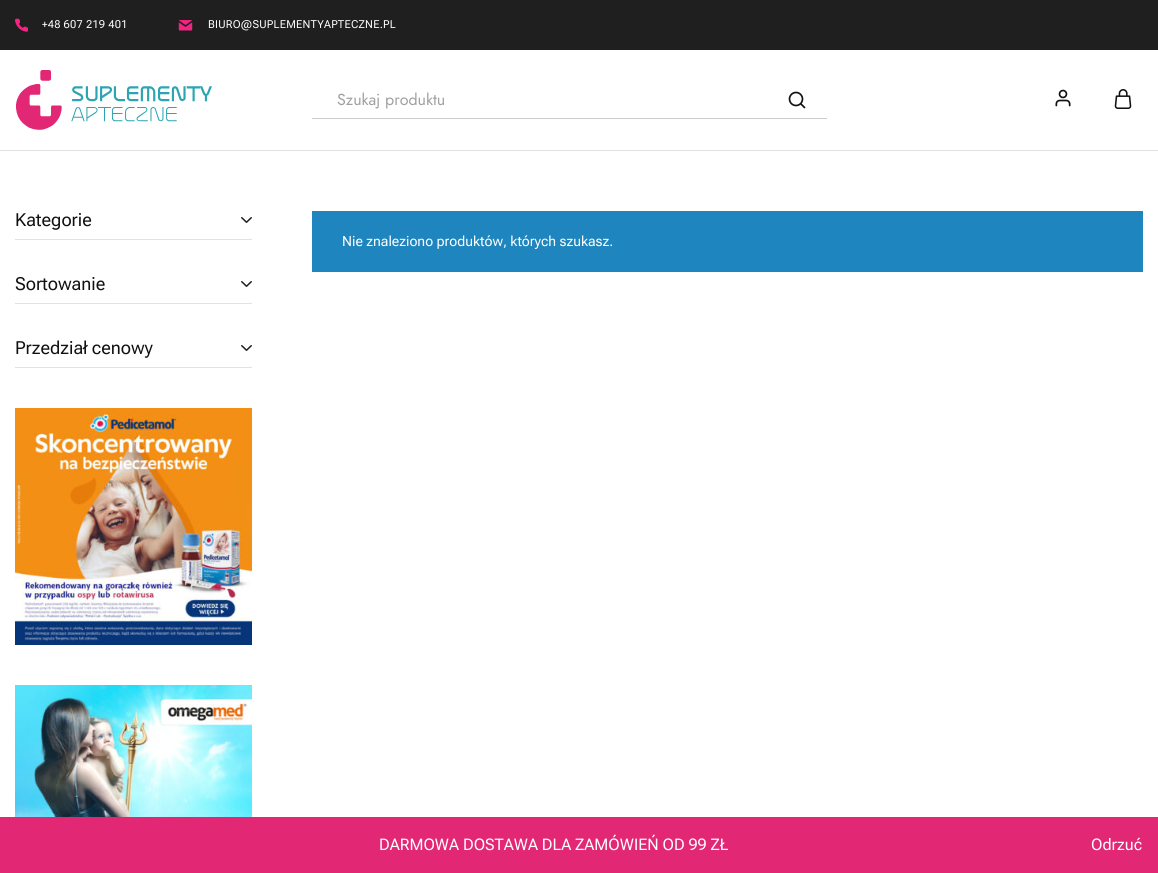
#include <cairo.h>
#include <math.h>
#include <stddef.h>

static cairo_t *ctx;

static void use_color(int r, int g, int b) {
    cairo_set_source_rgb(ctx, r / 255.0, g / 255.0, b / 255.0);
}

static void spaced_text(double x, double y, const char *s, double letter, double word) {
    cairo_move_to(ctx, x, y);
    while (*s) {
        char ch[5] = {0};
        int n = 0;
        do ch[n++] = *s++; while ((*s & 0xC0) == 0x80);
        cairo_show_text(ctx, ch);
        cairo_rel_move_to(ctx, letter + word * (*ch == ' '), 0);
    }
}

static void picture(const char *path, double x, double y, double w, double h) {
    cairo_surface_t *image = cairo_image_surface_create_from_png(path);
    cairo_save(ctx);
    cairo_set_source_surface(ctx, image, x, y);
    cairo_rectangle(ctx, x, y, w, h);
    cairo_fill(ctx);
    cairo_restore(ctx);
    cairo_surface_destroy(image);
}

int main(void) {
    cairo_surface_t *surface = cairo_image_surface_create(CAIRO_FORMAT_RGB24, 1158, 873);
    ctx = cairo_create(surface);
    cairo_font_options_t *options = cairo_font_options_create();
    cairo_font_options_set_hint_metrics(options, CAIRO_HINT_METRICS_OFF);
    cairo_font_options_set_hint_style(options, CAIRO_HINT_STYLE_NONE);
    cairo_set_font_options(ctx, options);
    cairo_set_miter_limit(ctx, 4);
    use_color(255, 255, 255);
    cairo_paint(ctx);
    use_color(31, 31, 31);
    cairo_rectangle(ctx, 0, 0, 1158, 50);
    cairo_fill(ctx);
    picture("img1.png", 15, 18, 13, 14);
    cairo_select_font_face(ctx, "Roboto Flex", CAIRO_FONT_SLANT_NORMAL, CAIRO_FONT_WEIGHT_NORMAL);
    cairo_set_font_size(ctx, 11);
    use_color(255, 255, 255);
    spaced_text(42, 28, "+48 607 219 401", 0.25, 0);
    picture("img2.png", 178, 20, 15, 11);
    spaced_text(208, 28, "BIURO@SUPLEMENTYAPTECZNE.PL", 0.25, 0);
    use_color(226, 226, 226);
    cairo_rectangle(ctx, 0, 150, 1158, 1);
    cairo_fill(ctx);
    picture("img3.png", 16, 70, 196, 60);
    use_color(205, 205, 205);
    cairo_rectangle(ctx, 312, 118, 515, 1);
    cairo_fill(ctx);
    cairo_select_font_face(ctx, "Jost", CAIRO_FONT_SLANT_NORMAL, CAIRO_FONT_WEIGHT_NORMAL);
    cairo_set_font_size(ctx, 16);
    use_color(160, 160, 160);
    cairo_move_to(ctx, 337, 105);
    cairo_show_text(ctx, "Szukaj produktu");
    cairo_new_path(ctx);
    cairo_arc(ctx, 796, 99, 6.5, 0, 2 * M_PI);
    use_color(17, 17, 17);
    cairo_set_line_width(ctx, 1.7);
    cairo_stroke(ctx);
    cairo_new_path(ctx);
    cairo_move_to(ctx, 804.5, 107.5);
    cairo_line_to(ctx, 801, 104);
    cairo_set_line_cap(ctx, CAIRO_LINE_CAP_ROUND);
    cairo_set_line_join(ctx, CAIRO_LINE_JOIN_ROUND);
    cairo_stroke(ctx);
    picture("img4.png", 1055, 89, 16, 18);
    picture("img5.png", 1114, 89, 18, 20);
    use_color(226, 226, 226);
    cairo_rectangle(ctx, 15, 239, 237, 1);
    cairo_fill(ctx);
    cairo_select_font_face(ctx, "Roboto Flex", CAIRO_FONT_SLANT_NORMAL, CAIRO_FONT_WEIGHT_NORMAL);
    cairo_set_font_size(ctx, 18);
    use_color(17, 17, 17);
    cairo_move_to(ctx, 15, 226);
    cairo_show_text(ctx, "Kategorie");
    picture("img6.png", 241, 217, 11, 6);
    use_color(226, 226, 226);
    cairo_rectangle(ctx, 15, 303, 237, 1);
    cairo_fill(ctx);
    use_color(17, 17, 17);
    cairo_move_to(ctx, 15, 290);
    cairo_show_text(ctx, "Sortowanie");
    picture("img6.png", 241, 281, 11, 6);
    use_color(226, 226, 226);
    cairo_rectangle(ctx, 15, 367, 237, 1);
    cairo_fill(ctx);
    use_color(17, 17, 17);
    cairo_move_to(ctx, 15, 354);
    cairo_show_text(ctx, "Przedział cenowy");
    picture("img6.png", 241, 345, 11, 6);
    picture("img7.png", 15, 408, 237, 237);
    picture("img8.png", 15, 685, 237, 132);
    use_color(30, 133, 190);
    cairo_rectangle(ctx, 312, 211, 831, 61);
    cairo_fill(ctx);
    cairo_set_font_size(ctx, 14);
    use_color(255, 255, 255);
    cairo_move_to(ctx, 342, 246);
    cairo_show_text(ctx, "Nie znaleziono produktów, których szukasz.");
    use_color(226, 39, 117);
    cairo_rectangle(ctx, 0, 817, 1158, 56);
    cairo_fill(ctx);
    cairo_set_font_size(ctx, 16);
    use_color(255, 255, 255);
    cairo_move_to(ctx, 379, 850);
    cairo_show_text(ctx, "DARMOWA DOSTAWA DLA ZAMÓWIEŃ OD 99 ZŁ");
    cairo_move_to(ctx, 1091, 850);
    cairo_show_text(ctx, "Odrzuć");
    cairo_surface_write_to_png(surface, "result.png");
    cairo_font_options_destroy(options);
    cairo_destroy(ctx);
    cairo_surface_destroy(surface);
    return 0;
}
